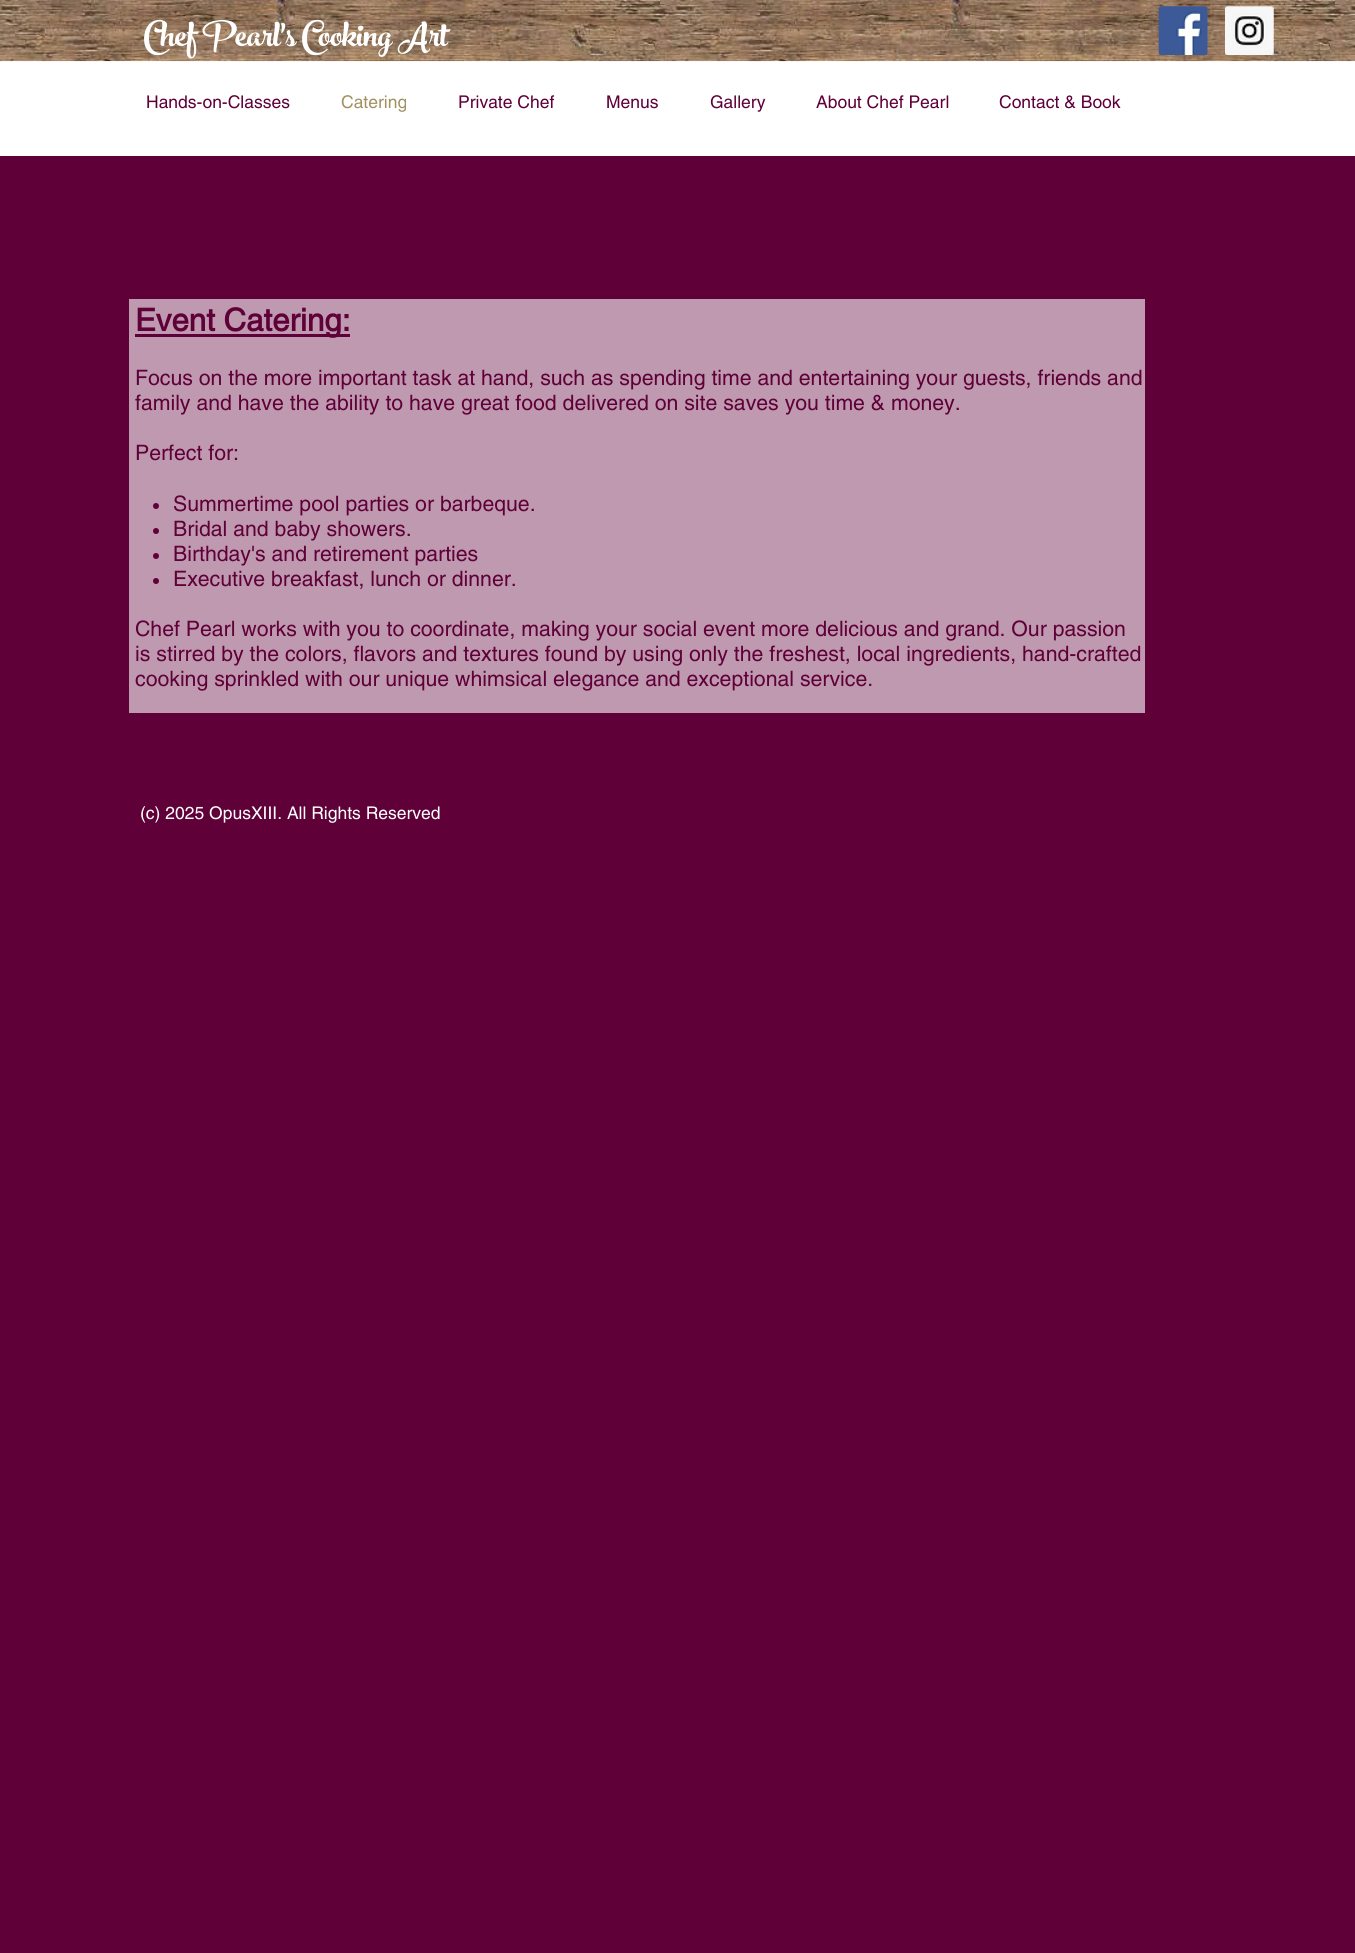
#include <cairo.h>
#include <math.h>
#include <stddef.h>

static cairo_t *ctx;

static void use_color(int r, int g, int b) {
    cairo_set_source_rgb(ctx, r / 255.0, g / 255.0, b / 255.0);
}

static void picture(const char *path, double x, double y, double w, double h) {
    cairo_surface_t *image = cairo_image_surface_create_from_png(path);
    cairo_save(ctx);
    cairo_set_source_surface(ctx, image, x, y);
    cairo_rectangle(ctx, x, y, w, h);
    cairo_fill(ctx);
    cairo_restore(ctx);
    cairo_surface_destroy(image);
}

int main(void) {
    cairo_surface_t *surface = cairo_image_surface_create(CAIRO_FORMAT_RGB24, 1355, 1953);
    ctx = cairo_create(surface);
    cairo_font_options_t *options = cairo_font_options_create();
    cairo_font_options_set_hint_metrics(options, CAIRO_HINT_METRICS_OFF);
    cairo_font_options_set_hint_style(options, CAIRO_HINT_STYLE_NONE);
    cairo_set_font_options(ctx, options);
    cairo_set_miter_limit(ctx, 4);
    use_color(95, 0, 56);
    cairo_paint(ctx);
    use_color(255, 255, 255);
    cairo_rectangle(ctx, 0, 61, 1355, 95);
    cairo_fill(ctx);
    picture("img1.png", 0, 0, 1355, 62);
    picture("img2.png", 1158, 6, 50, 49);
    picture("img3.png", 1225, 6, 49, 49);
    cairo_select_font_face(ctx, "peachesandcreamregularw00", CAIRO_FONT_SLANT_NORMAL, CAIRO_FONT_WEIGHT_NORMAL);
    cairo_set_font_size(ctx, 51.25);
    cairo_move_to(ctx, 144, 46);
    cairo_show_text(ctx, "Chef Pearl's Cooking Art");
    cairo_select_font_face(ctx, "helvetica", CAIRO_FONT_SLANT_NORMAL, CAIRO_FONT_WEIGHT_NORMAL);
    cairo_set_font_size(ctx, 17.5);
    use_color(95, 0, 56);
    cairo_move_to(ctx, 146, 108);
    cairo_show_text(ctx, "Hands-on-Classes");
    use_color(162, 145, 96);
    cairo_move_to(ctx, 341, 108);
    cairo_show_text(ctx, "Catering");
    use_color(95, 0, 56);
    cairo_move_to(ctx, 458, 108);
    cairo_show_text(ctx, "Private Chef");
    cairo_move_to(ctx, 606, 108);
    cairo_show_text(ctx, "Menus");
    cairo_move_to(ctx, 710, 108);
    cairo_show_text(ctx, "Gallery");
    cairo_move_to(ctx, 816, 108);
    cairo_show_text(ctx, "About Chef Pearl");
    cairo_move_to(ctx, 999, 108);
    cairo_show_text(ctx, "Contact & Book");
    use_color(191, 153, 175);
    cairo_rectangle(ctx, 129, 299, 1016, 414);
    cairo_fill(ctx);
    use_color(95, 0, 56);
    cairo_rectangle(ctx, 135, 334, 215, 3);
    cairo_fill(ctx);
    cairo_select_font_face(ctx, "helvetica", CAIRO_FONT_SLANT_NORMAL, CAIRO_FONT_WEIGHT_BOLD);
    cairo_set_font_size(ctx, 31.25);
    cairo_move_to(ctx, 135, 331);
    cairo_show_text(ctx, "Event Catering:");
    cairo_select_font_face(ctx, "helvetica", CAIRO_FONT_SLANT_NORMAL, CAIRO_FONT_WEIGHT_NORMAL);
    cairo_set_font_size(ctx, 21.25);
    cairo_move_to(ctx, 135, 385);
    cairo_show_text(ctx, "Focus on the more important task at hand, such as spending time and entertaining your guests, friends and");
    cairo_move_to(ctx, 135, 410);
    cairo_show_text(ctx, "family and have the ability to have great food delivered on site saves you time & money.");
    cairo_move_to(ctx, 135, 460);
    cairo_show_text(ctx, "Perfect for:");
    cairo_new_path(ctx);
    cairo_arc(ctx, 156, 506, 3, 0, 2 * M_PI);
    cairo_fill(ctx);
    cairo_move_to(ctx, 173, 511);
    cairo_show_text(ctx, "Summertime pool parties or barbeque.");
    cairo_new_path(ctx);
    cairo_arc(ctx, 156, 531, 3, 0, 2 * M_PI);
    cairo_fill(ctx);
    cairo_move_to(ctx, 173, 536);
    cairo_show_text(ctx, "Bridal and baby showers.");
    cairo_new_path(ctx);
    cairo_arc(ctx, 156, 556, 3, 0, 2 * M_PI);
    cairo_fill(ctx);
    cairo_move_to(ctx, 173, 561);
    cairo_show_text(ctx, "Birthday's and retirement parties");
    cairo_new_path(ctx);
    cairo_arc(ctx, 156, 581, 3, 0, 2 * M_PI);
    cairo_fill(ctx);
    cairo_move_to(ctx, 173, 586);
    cairo_show_text(ctx, "Executive breakfast, lunch or dinner.");
    cairo_move_to(ctx, 135, 636);
    cairo_show_text(ctx, "Chef Pearl works with you to coordinate, making your social event more delicious and grand. Our passion");
    cairo_move_to(ctx, 135, 661);
    cairo_show_text(ctx, "is stirred by the colors, flavors and textures found by using only the freshest, local ingredients, hand-crafted");
    cairo_move_to(ctx, 135, 686);
    cairo_show_text(ctx, "cooking sprinkled with our unique whimsical elegance and exceptional service.");
    cairo_set_font_size(ctx, 17.5);
    use_color(255, 255, 255);
    cairo_move_to(ctx, 140, 819);
    cairo_show_text(ctx, "(c) 2025 OpusXIII. All Rights Reserved");
    cairo_surface_write_to_png(surface, "result.png");
    cairo_font_options_destroy(options);
    cairo_destroy(ctx);
    cairo_surface_destroy(surface);
    return 0;
}
